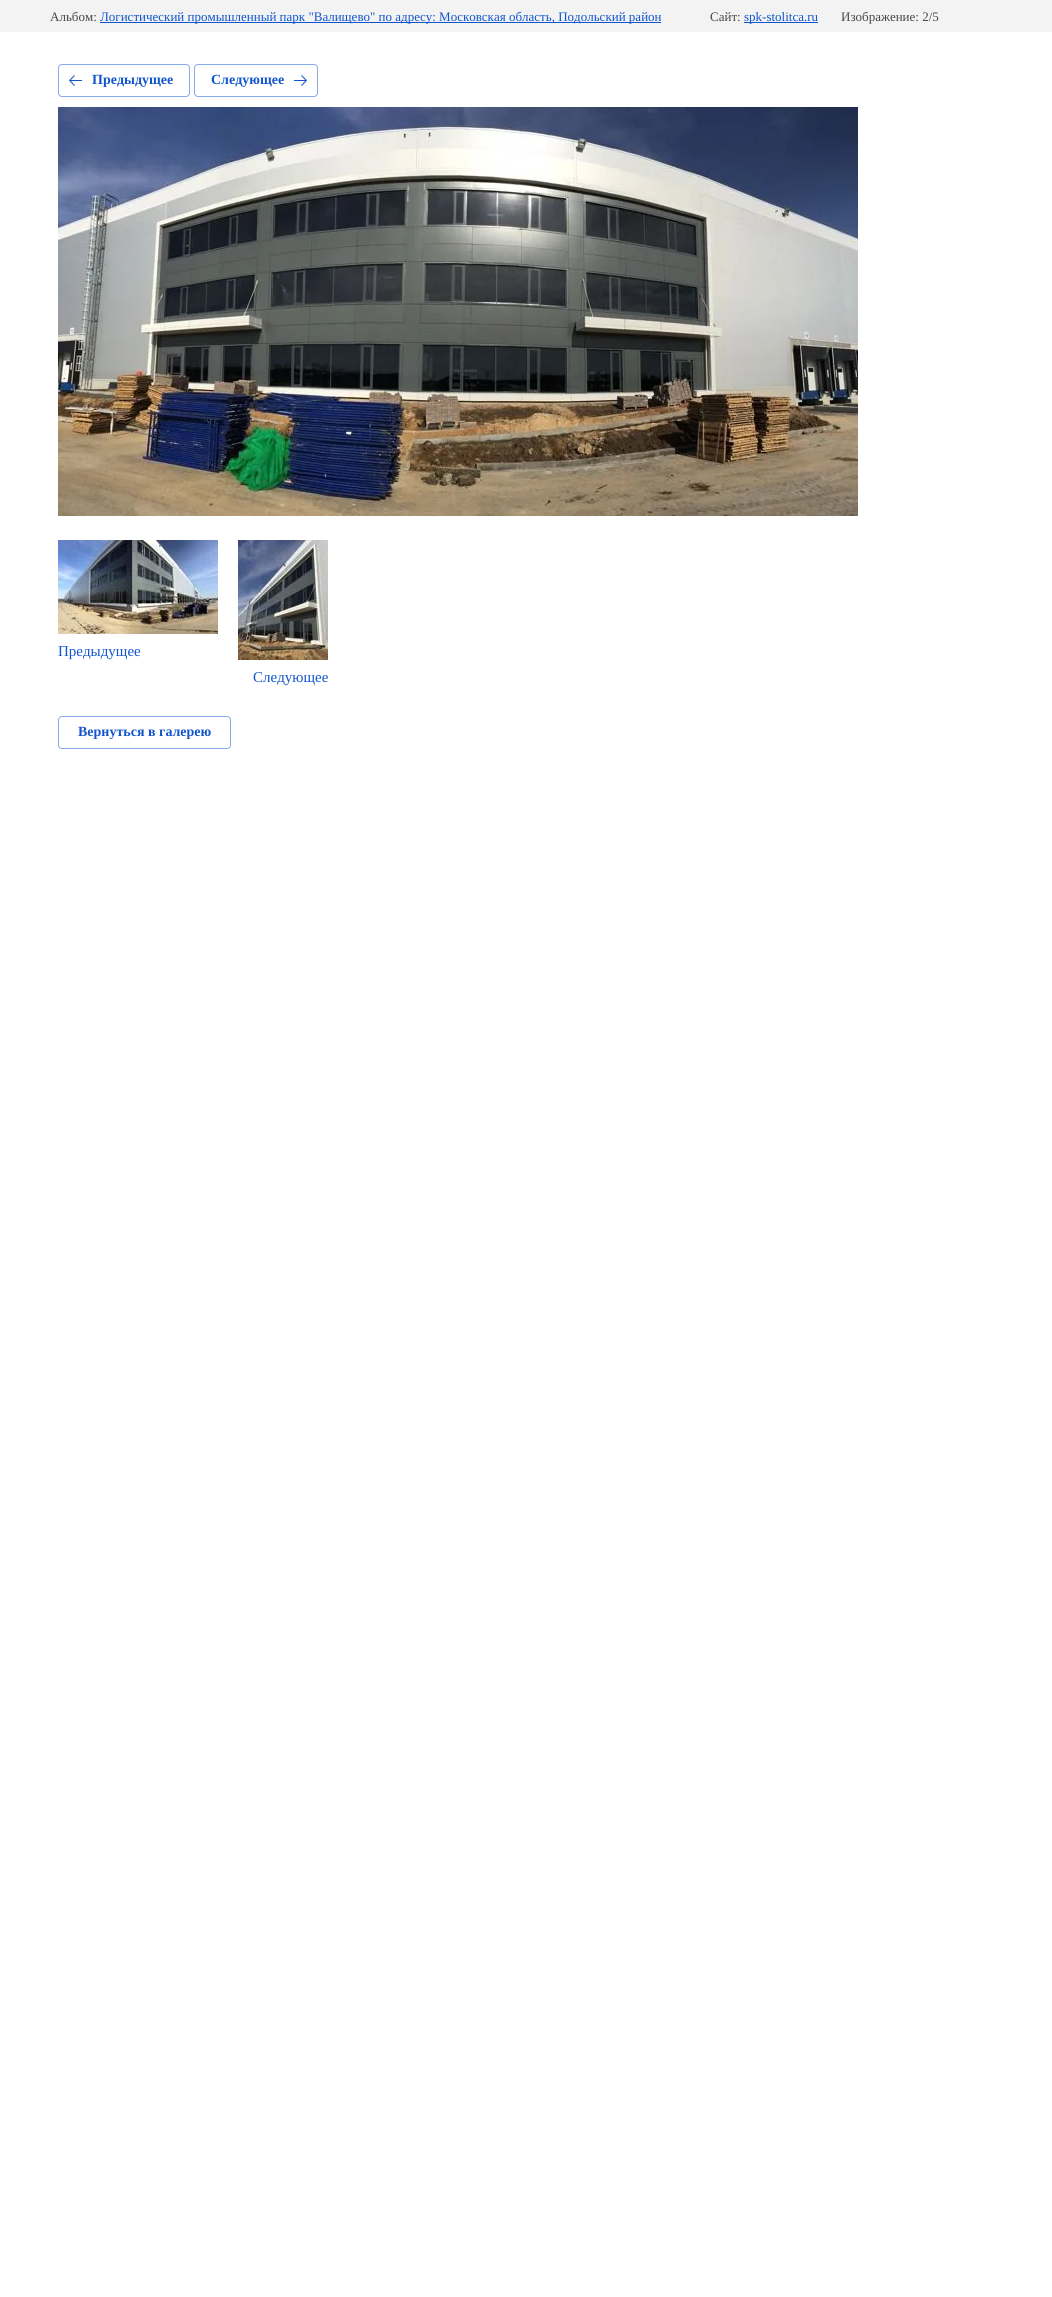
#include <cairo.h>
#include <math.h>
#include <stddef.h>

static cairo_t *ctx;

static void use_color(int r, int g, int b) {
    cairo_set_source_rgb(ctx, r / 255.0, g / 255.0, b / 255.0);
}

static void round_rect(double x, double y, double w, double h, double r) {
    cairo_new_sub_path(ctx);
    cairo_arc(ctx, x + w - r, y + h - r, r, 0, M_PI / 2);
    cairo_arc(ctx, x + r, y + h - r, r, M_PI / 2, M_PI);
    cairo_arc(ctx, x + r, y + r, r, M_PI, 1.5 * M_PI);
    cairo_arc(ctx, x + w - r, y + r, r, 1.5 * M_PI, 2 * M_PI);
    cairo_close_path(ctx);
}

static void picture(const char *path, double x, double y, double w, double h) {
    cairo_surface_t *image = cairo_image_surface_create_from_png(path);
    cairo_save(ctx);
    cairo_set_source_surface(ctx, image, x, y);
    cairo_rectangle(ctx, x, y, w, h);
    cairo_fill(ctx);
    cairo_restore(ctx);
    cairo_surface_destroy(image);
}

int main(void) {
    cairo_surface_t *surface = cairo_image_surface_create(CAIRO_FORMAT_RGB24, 1052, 2297);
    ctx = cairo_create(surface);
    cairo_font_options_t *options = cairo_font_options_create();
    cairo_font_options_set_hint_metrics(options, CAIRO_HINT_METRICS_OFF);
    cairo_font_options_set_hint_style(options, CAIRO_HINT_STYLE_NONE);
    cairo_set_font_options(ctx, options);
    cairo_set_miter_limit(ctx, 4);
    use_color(255, 255, 255);
    cairo_paint(ctx);
    use_color(243, 243, 243);
    cairo_rectangle(ctx, 0, 0, 1052, 32);
    cairo_fill(ctx);
    cairo_select_font_face(ctx, "Liberation Serif", CAIRO_FONT_SLANT_NORMAL, CAIRO_FONT_WEIGHT_NORMAL);
    cairo_set_font_size(ctx, 13);
    use_color(72, 72, 72);
    cairo_move_to(ctx, 50, 21);
    cairo_show_text(ctx, "Альбом:");
    use_color(17, 85, 204);
    cairo_rectangle(ctx, 100, 22, 561, 1);
    cairo_fill(ctx);
    cairo_move_to(ctx, 100, 21);
    cairo_show_text(ctx, "Логистический промышленный парк \"Валищево\" по адресу: Московская область, Подольский район");
    use_color(72, 72, 72);
    cairo_move_to(ctx, 710, 21);
    cairo_show_text(ctx, "Сайт:");
    use_color(17, 85, 204);
    cairo_rectangle(ctx, 744, 22, 74, 1);
    cairo_fill(ctx);
    cairo_move_to(ctx, 744, 21);
    cairo_show_text(ctx, "spk-stolitca.ru");
    use_color(72, 72, 72);
    cairo_move_to(ctx, 841, 21);
    cairo_show_text(ctx, "Изображение: 2/5");
    round_rect(58.5, 64.5, 131, 32, 3.5);
    use_color(136, 170, 230);
    cairo_set_line_width(ctx, 1);
    cairo_stroke(ctx);
    picture("img1.png", 69, 75, 13, 11);
    cairo_select_font_face(ctx, "Liberation Serif", CAIRO_FONT_SLANT_NORMAL, CAIRO_FONT_WEIGHT_BOLD);
    cairo_set_font_size(ctx, 14);
    use_color(17, 85, 204);
    cairo_move_to(ctx, 92, 84);
    cairo_show_text(ctx, "Предыдущее");
    round_rect(194.5, 64.5, 123, 32, 3.5);
    use_color(136, 170, 230);
    cairo_stroke(ctx);
    use_color(17, 85, 204);
    cairo_move_to(ctx, 211, 84);
    cairo_show_text(ctx, "Следующее");
    picture("img2.png", 294, 75, 13, 11);
    picture("img3.png", 58, 107, 800, 409);
    picture("img4.png", 58, 540, 160, 94);
    cairo_select_font_face(ctx, "Liberation Serif", CAIRO_FONT_SLANT_NORMAL, CAIRO_FONT_WEIGHT_NORMAL);
    cairo_set_font_size(ctx, 15);
    cairo_move_to(ctx, 58, 656);
    cairo_show_text(ctx, "Предыдущее");
    picture("img5.png", 238, 540, 90, 120);
    cairo_move_to(ctx, 253, 682);
    cairo_show_text(ctx, "Следующее");
    round_rect(58.5, 716.5, 172, 32, 3.5);
    use_color(136, 170, 230);
    cairo_stroke(ctx);
    cairo_select_font_face(ctx, "Liberation Serif", CAIRO_FONT_SLANT_NORMAL, CAIRO_FONT_WEIGHT_BOLD);
    cairo_set_font_size(ctx, 14);
    use_color(17, 85, 204);
    cairo_move_to(ctx, 78, 736);
    cairo_show_text(ctx, "Вернуться в галерею");
    cairo_surface_write_to_png(surface, "result.png");
    cairo_font_options_destroy(options);
    cairo_destroy(ctx);
    cairo_surface_destroy(surface);
    return 0;
}
